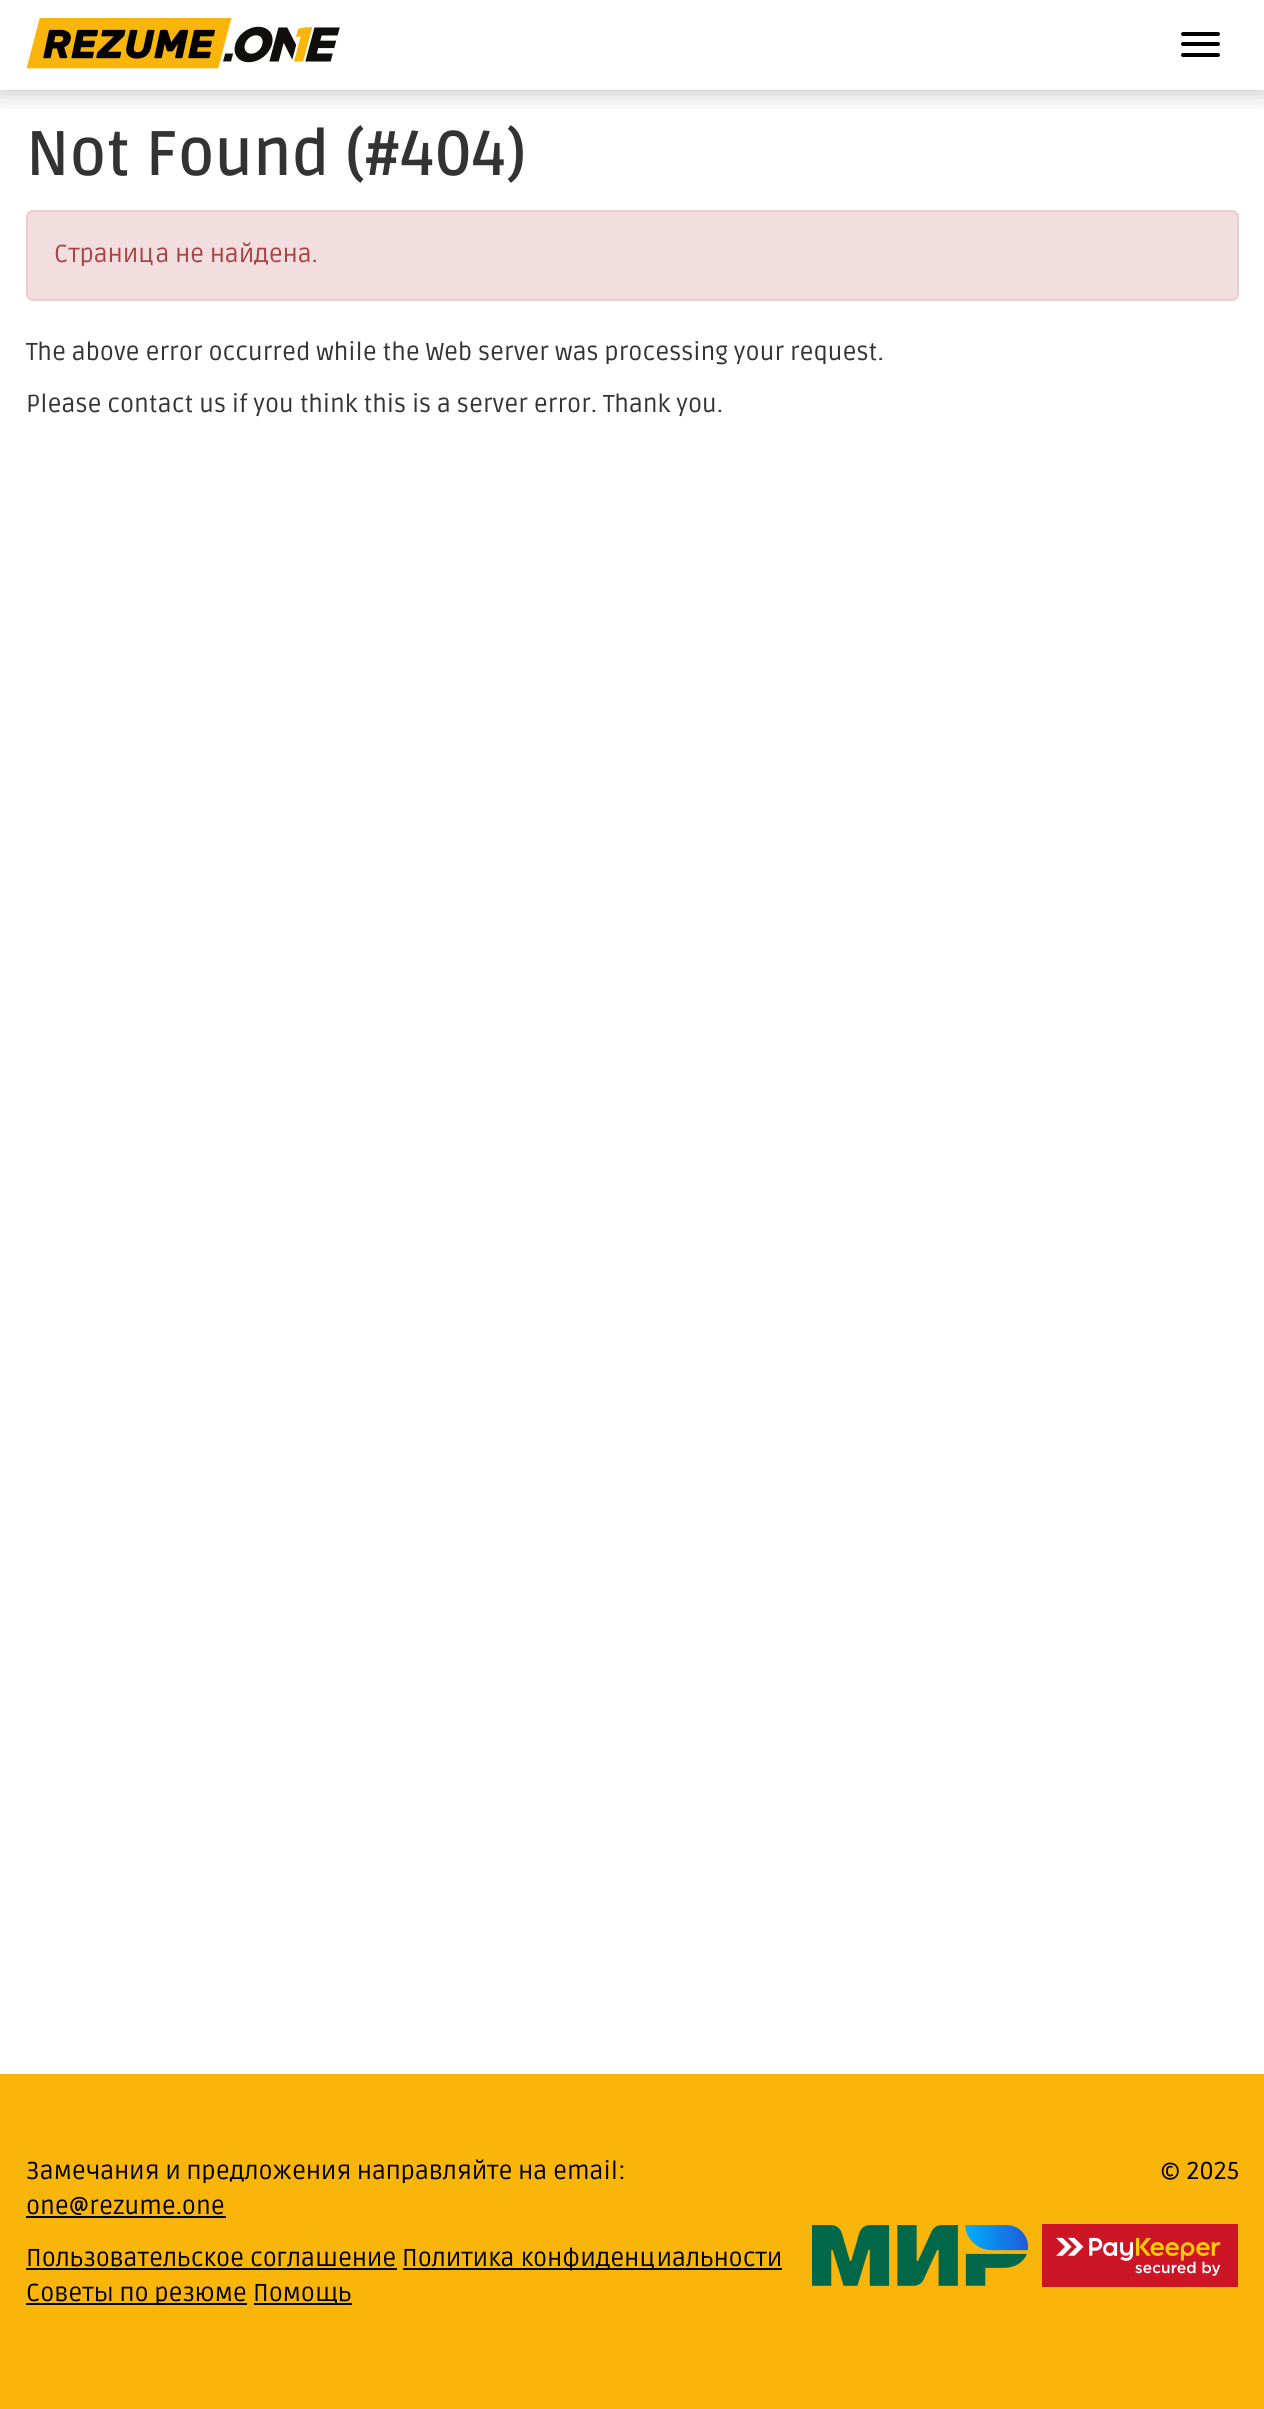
#include <cairo.h>
#include <math.h>
#include <stddef.h>

static cairo_t *ctx;

static void use_color(int r, int g, int b) {
    cairo_set_source_rgb(ctx, r / 255.0, g / 255.0, b / 255.0);
}

static void round_rect(double x, double y, double w, double h, double r) {
    cairo_new_sub_path(ctx);
    cairo_arc(ctx, x + w - r, y + h - r, r, 0, M_PI / 2);
    cairo_arc(ctx, x + r, y + h - r, r, M_PI / 2, M_PI);
    cairo_arc(ctx, x + r, y + r, r, M_PI, 1.5 * M_PI);
    cairo_arc(ctx, x + w - r, y + r, r, 1.5 * M_PI, 2 * M_PI);
    cairo_close_path(ctx);
}

static void shadow(double x, double y, double w, double h, double r, double blur, double alpha) {
    cairo_push_group_with_content(ctx, CAIRO_CONTENT_ALPHA);
    cairo_set_operator(ctx, CAIRO_OPERATOR_SOURCE);
    for (int i = 15; i >= -15 && fmin(w, h) + blur * i / 3 > 0; i -= 2) {
        double e = blur * i / 6;
        cairo_set_source_rgba(ctx, 0, 0, 0, alpha * erfc((i - 1) / 8.5) / 2);
        round_rect(x - e, y - e, w + 2 * e, h + 2 * e, fmax(0, fmin(r + e + blur * .6, fmin(w, h) / 2 + e)));
        cairo_fill(ctx);
    }
    cairo_pattern_t *soft = cairo_pop_group(ctx);
    cairo_mask(ctx, soft);
    cairo_pattern_destroy(soft);
}

static void picture(const char *path, double x, double y, double w, double h) {
    cairo_surface_t *image = cairo_image_surface_create_from_png(path);
    cairo_save(ctx);
    cairo_set_source_surface(ctx, image, x, y);
    cairo_rectangle(ctx, x, y, w, h);
    cairo_fill(ctx);
    cairo_restore(ctx);
    cairo_surface_destroy(image);
}

int main(void) {
    cairo_surface_t *surface = cairo_image_surface_create(CAIRO_FORMAT_RGB24, 1264, 2409);
    ctx = cairo_create(surface);
    cairo_font_options_t *options = cairo_font_options_create();
    cairo_font_options_set_hint_metrics(options, CAIRO_HINT_METRICS_OFF);
    cairo_font_options_set_hint_style(options, CAIRO_HINT_STYLE_NONE);
    cairo_set_font_options(ctx, options);
    cairo_set_miter_limit(ctx, 4);
    use_color(255, 255, 255);
    cairo_paint(ctx);
    cairo_save(ctx);
    cairo_rectangle(ctx, 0, 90, 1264, 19);
    cairo_clip(ctx);
    use_color(0, 0, 0);
    shadow(0, 0, 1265, 89, 0, 13, 0.3);
    cairo_restore(ctx);
    use_color(255, 255, 255);
    cairo_rectangle(ctx, 0, 89, 1264, 1);
    cairo_fill(ctx);
    picture("img1.png", 26, 18, 314, 51);
    use_color(0, 0, 0);
    round_rect(1181, 32, 39, 4, 2);
    cairo_fill(ctx);
    round_rect(1181, 42, 39, 4, 2);
    cairo_fill(ctx);
    round_rect(1181, 53, 39, 4, 2);
    cairo_fill(ctx);
    cairo_select_font_face(ctx, "Ruda SemiBold", CAIRO_FONT_SLANT_NORMAL, CAIRO_FONT_WEIGHT_NORMAL);
    cairo_set_font_size(ctx, 63);
    use_color(51, 51, 51);
    cairo_move_to(ctx, 26, 175);
    cairo_show_text(ctx, "Not Found (#404)");
    use_color(242, 222, 222);
    round_rect(27, 211, 1211, 89, 6);
    cairo_fill_preserve(ctx);
    use_color(235, 204, 209);
    cairo_stroke(ctx);
    cairo_select_font_face(ctx, "Ruda", CAIRO_FONT_SLANT_NORMAL, CAIRO_FONT_WEIGHT_NORMAL);
    cairo_set_font_size(ctx, 24.5);
    use_color(169, 68, 66);
    cairo_move_to(ctx, 54, 262);
    cairo_show_text(ctx, "Страница не найдена.");
    use_color(51, 51, 51);
    cairo_move_to(ctx, 26, 360);
    cairo_show_text(ctx, "The above error occurred while the Web server was processing your request.");
    cairo_move_to(ctx, 26, 412);
    cairo_show_text(ctx, "Please contact us if you think this is a server error. Thank you.");
    use_color(250, 181, 10);
    cairo_rectangle(ctx, 0, 2074, 1264, 335);
    cairo_fill(ctx);
    use_color(0, 0, 0);
    cairo_move_to(ctx, 26, 2179);
    cairo_show_text(ctx, "Замечания и предложения направляйте на email:");
    cairo_move_to(ctx, 26, 2214);
    cairo_show_text(ctx, "one@rezume.one");
    cairo_rectangle(ctx, 26, 2216, 200, 2);
    cairo_fill(ctx);
    cairo_move_to(ctx, 1160, 2179);
    cairo_show_text(ctx, "© 2025");
    picture("img2.png", 812, 2225, 216, 61);
    picture("img3.png", 1042, 2224, 196, 63);
    cairo_move_to(ctx, 26, 2266);
    cairo_show_text(ctx, "Пользовательское соглашение");
    cairo_rectangle(ctx, 26, 2268, 371, 2);
    cairo_fill(ctx);
    cairo_rectangle(ctx, 403, 2268, 379, 2);
    cairo_fill(ctx);
    cairo_move_to(ctx, 402, 2266);
    cairo_show_text(ctx, "Политика конфиденциальности");
    cairo_rectangle(ctx, 26, 2303, 221, 2);
    cairo_fill(ctx);
    cairo_move_to(ctx, 26, 2301);
    cairo_show_text(ctx, "Советы по резюме");
    cairo_rectangle(ctx, 254, 2303, 98, 2);
    cairo_fill(ctx);
    cairo_move_to(ctx, 253, 2301);
    cairo_show_text(ctx, "Помощь");
    cairo_surface_write_to_png(surface, "result.png");
    cairo_font_options_destroy(options);
    cairo_destroy(ctx);
    cairo_surface_destroy(surface);
    return 0;
}
